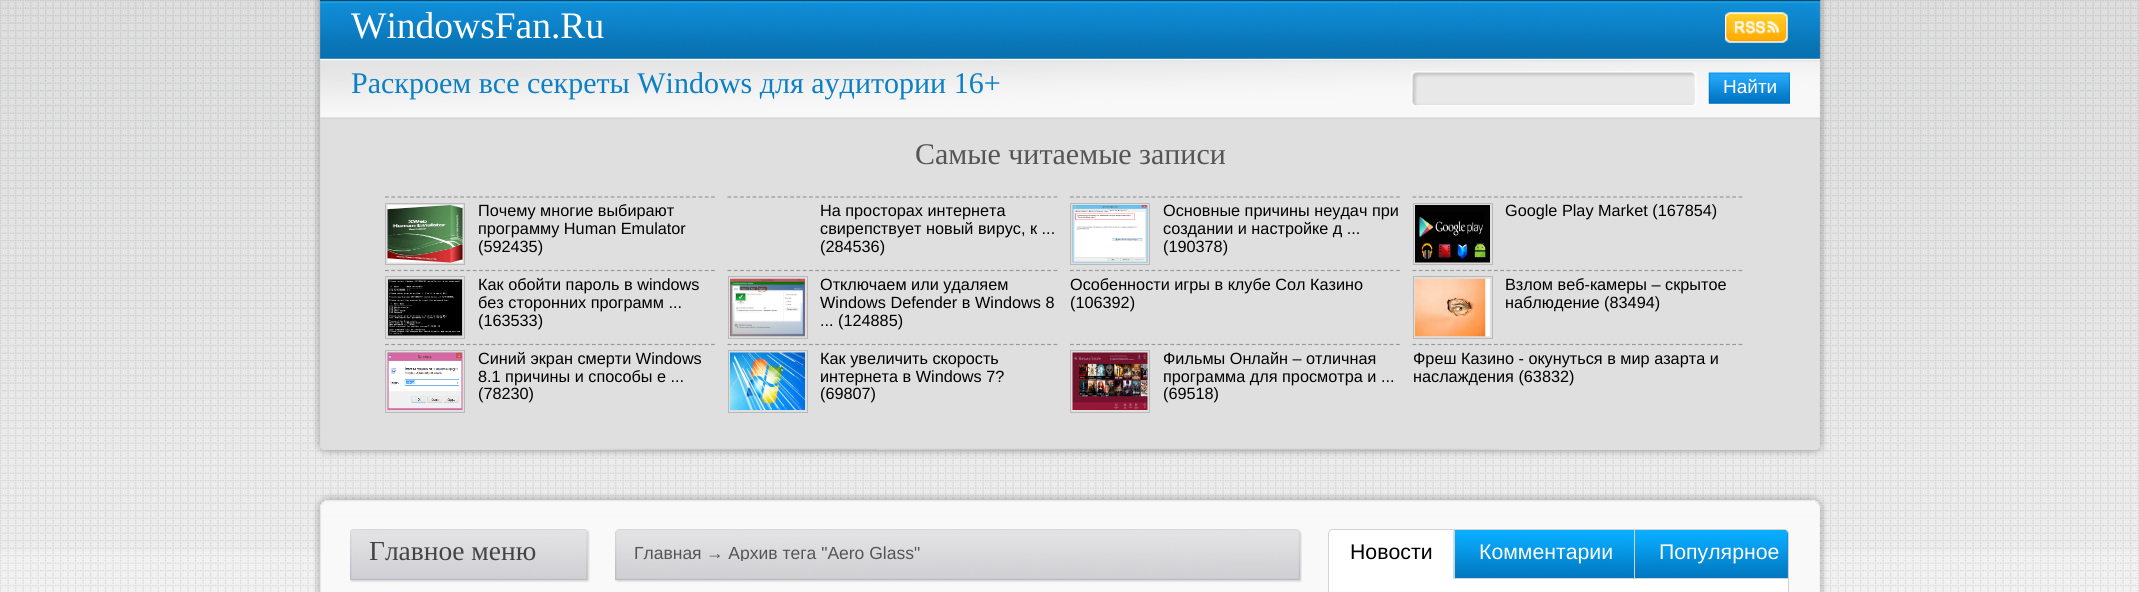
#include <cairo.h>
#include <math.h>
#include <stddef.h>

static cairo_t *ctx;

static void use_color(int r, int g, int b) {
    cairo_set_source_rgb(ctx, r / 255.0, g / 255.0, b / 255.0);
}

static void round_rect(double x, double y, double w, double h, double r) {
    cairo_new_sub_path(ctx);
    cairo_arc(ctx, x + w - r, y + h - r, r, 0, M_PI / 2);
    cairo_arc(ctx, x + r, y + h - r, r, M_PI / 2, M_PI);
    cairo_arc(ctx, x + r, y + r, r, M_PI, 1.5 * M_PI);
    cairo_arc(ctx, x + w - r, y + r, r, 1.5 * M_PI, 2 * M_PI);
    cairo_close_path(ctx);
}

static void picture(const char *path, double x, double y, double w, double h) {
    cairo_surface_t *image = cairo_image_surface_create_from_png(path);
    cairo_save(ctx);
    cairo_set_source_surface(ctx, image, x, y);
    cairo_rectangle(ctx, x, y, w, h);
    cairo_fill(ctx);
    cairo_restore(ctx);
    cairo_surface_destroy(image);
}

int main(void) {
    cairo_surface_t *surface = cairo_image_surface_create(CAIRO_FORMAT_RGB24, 2139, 592);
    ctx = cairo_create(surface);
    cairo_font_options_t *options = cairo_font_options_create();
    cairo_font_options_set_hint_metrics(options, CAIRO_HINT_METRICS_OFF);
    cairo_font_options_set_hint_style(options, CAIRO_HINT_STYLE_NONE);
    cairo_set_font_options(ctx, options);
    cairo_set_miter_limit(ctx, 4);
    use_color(242, 242, 242);
    cairo_paint(ctx);
    picture("img1.png", 0, 0, 2139, 552);
    picture("img2.png", 0, 0, 2139, 592);
    picture("img8.png", 313, 118, 1514, 316);
    picture("img6.png", 313, 58, 1514, 61);
    picture("img3.png", 313, 0, 1514, 59);
    cairo_select_font_face(ctx, "Liberation Serif", CAIRO_FONT_SLANT_NORMAL, CAIRO_FONT_WEIGHT_NORMAL);
    cairo_set_font_size(ctx, 37.5);
    use_color(255, 255, 255);
    cairo_move_to(ctx, 351, 38);
    cairo_show_text(ctx, "WindowsFan.Ru");
    picture("img4.png", 1725, 12, 63, 31);
    picture("img5.png", 1725, 12, 63, 31);
    cairo_set_font_size(ctx, 30);
    use_color(12, 128, 197);
    cairo_move_to(ctx, 351, 93);
    cairo_show_text(ctx, "Раскроем все секреты Windows для аудитории 16+");
    picture("img7.png", 1708, 72, 82, 32);
    cairo_select_font_face(ctx, "Liberation Sans", CAIRO_FONT_SLANT_NORMAL, CAIRO_FONT_WEIGHT_NORMAL);
    cairo_set_font_size(ctx, 19);
    use_color(255, 255, 255);
    cairo_move_to(ctx, 1723, 93);
    cairo_show_text(ctx, "Найти");
    cairo_select_font_face(ctx, "Liberation Serif", CAIRO_FONT_SLANT_NORMAL, CAIRO_FONT_WEIGHT_NORMAL);
    cairo_set_font_size(ctx, 30);
    use_color(85, 85, 85);
    cairo_move_to(ctx, 915, 164);
    cairo_show_text(ctx, "Самые читаемые записи");
    cairo_new_path(ctx);
    cairo_move_to(ctx, 385, 197);
    cairo_line_to(ctx, 715, 197);
    use_color(153, 153, 153);
    cairo_set_line_width(ctx, 1.2);
    cairo_set_dash(ctx, (double[]){3.75, 2.52}, 2, 0);
    cairo_stroke(ctx);
    cairo_rectangle(ctx, 385.5, 203.5, 79, 61);
    use_color(185, 185, 185);
    cairo_set_line_width(ctx, 1);
    cairo_set_dash(ctx, NULL, 0, 0);
    cairo_stroke(ctx);
    picture("img9.png", 387, 205, 76, 58);
    cairo_select_font_face(ctx, "Liberation Sans", CAIRO_FONT_SLANT_NORMAL, CAIRO_FONT_WEIGHT_NORMAL);
    cairo_set_font_size(ctx, 16.25);
    use_color(0, 0, 0);
    cairo_move_to(ctx, 478, 216);
    cairo_show_text(ctx, "Почему многие выбирают");
    cairo_move_to(ctx, 478, 234);
    cairo_show_text(ctx, "программу Human Emulator");
    cairo_move_to(ctx, 478, 252);
    cairo_show_text(ctx, "(592435)");
    cairo_new_path(ctx);
    cairo_move_to(ctx, 727.5, 197);
    cairo_line_to(ctx, 1057.5, 197);
    use_color(153, 153, 153);
    cairo_set_line_width(ctx, 1.2);
    cairo_set_dash(ctx, (double[]){3.75, 2.52}, 2, 0);
    cairo_stroke(ctx);
    use_color(0, 0, 0);
    cairo_move_to(ctx, 820, 216);
    cairo_show_text(ctx, "На просторах интернета");
    cairo_move_to(ctx, 820, 234);
    cairo_show_text(ctx, "свирепствует новый вирус, к ...");
    cairo_move_to(ctx, 820, 252);
    cairo_show_text(ctx, "(284536)");
    cairo_new_path(ctx);
    cairo_move_to(ctx, 1070, 197);
    cairo_line_to(ctx, 1400, 197);
    use_color(153, 153, 153);
    cairo_stroke(ctx);
    cairo_rectangle(ctx, 1070.5, 203.5, 79, 61);
    use_color(185, 185, 185);
    cairo_set_line_width(ctx, 1);
    cairo_set_dash(ctx, NULL, 0, 0);
    cairo_stroke(ctx);
    picture("img10.png", 1072, 205, 76, 58);
    use_color(0, 0, 0);
    cairo_move_to(ctx, 1163, 216);
    cairo_show_text(ctx, "Основные причины неудач при");
    cairo_move_to(ctx, 1163, 234);
    cairo_show_text(ctx, "создании и настройке д ...");
    cairo_move_to(ctx, 1163, 252);
    cairo_show_text(ctx, "(190378)");
    cairo_new_path(ctx);
    cairo_move_to(ctx, 1412.5, 197);
    cairo_line_to(ctx, 1742.5, 197);
    use_color(153, 153, 153);
    cairo_set_line_width(ctx, 1.2);
    cairo_set_dash(ctx, (double[]){3.75, 2.52}, 2, 0);
    cairo_stroke(ctx);
    cairo_rectangle(ctx, 1413.5, 203.5, 79, 61);
    use_color(185, 185, 185);
    cairo_set_line_width(ctx, 1);
    cairo_set_dash(ctx, NULL, 0, 0);
    cairo_stroke(ctx);
    picture("img11.png", 1415, 205, 75, 58);
    use_color(0, 0, 0);
    cairo_move_to(ctx, 1505, 216);
    cairo_show_text(ctx, "Google Play Market (167854)");
    cairo_new_path(ctx);
    cairo_move_to(ctx, 385, 270.5);
    cairo_line_to(ctx, 715, 270.5);
    use_color(153, 153, 153);
    cairo_set_line_width(ctx, 1.2);
    cairo_set_dash(ctx, (double[]){3.75, 2.52}, 2, 0);
    cairo_stroke(ctx);
    cairo_rectangle(ctx, 385.5, 276.5, 79, 62);
    use_color(185, 185, 185);
    cairo_set_line_width(ctx, 1);
    cairo_set_dash(ctx, NULL, 0, 0);
    cairo_stroke(ctx);
    picture("img12.png", 387, 278, 76, 59);
    use_color(0, 0, 0);
    cairo_move_to(ctx, 478, 290);
    cairo_show_text(ctx, "Как обойти пароль в windows");
    cairo_move_to(ctx, 478, 308);
    cairo_show_text(ctx, "без сторонних программ ...");
    cairo_move_to(ctx, 478, 326);
    cairo_show_text(ctx, "(163533)");
    cairo_new_path(ctx);
    cairo_move_to(ctx, 727.5, 270.5);
    cairo_line_to(ctx, 1057.5, 270.5);
    use_color(153, 153, 153);
    cairo_set_line_width(ctx, 1.2);
    cairo_set_dash(ctx, (double[]){3.75, 2.52}, 2, 0);
    cairo_stroke(ctx);
    cairo_rectangle(ctx, 728.5, 276.5, 79, 62);
    use_color(185, 185, 185);
    cairo_set_line_width(ctx, 1);
    cairo_set_dash(ctx, NULL, 0, 0);
    cairo_stroke(ctx);
    picture("img13.png", 730, 278, 75, 59);
    use_color(0, 0, 0);
    cairo_move_to(ctx, 820, 290);
    cairo_show_text(ctx, "Отключаем или удаляем");
    cairo_move_to(ctx, 820, 308);
    cairo_show_text(ctx, "Windows Defender в Windows 8");
    cairo_move_to(ctx, 820, 326);
    cairo_show_text(ctx, "... (124885)");
    cairo_new_path(ctx);
    cairo_move_to(ctx, 1070, 270.5);
    cairo_line_to(ctx, 1400, 270.5);
    use_color(153, 153, 153);
    cairo_set_line_width(ctx, 1.2);
    cairo_set_dash(ctx, (double[]){3.75, 2.52}, 2, 0);
    cairo_stroke(ctx);
    use_color(0, 0, 0);
    cairo_move_to(ctx, 1070, 290);
    cairo_show_text(ctx, "Особенности игры в клубе Сол Казино");
    cairo_move_to(ctx, 1070, 308);
    cairo_show_text(ctx, "(106392)");
    cairo_new_path(ctx);
    cairo_move_to(ctx, 1412.5, 270.5);
    cairo_line_to(ctx, 1742.5, 270.5);
    use_color(153, 153, 153);
    cairo_stroke(ctx);
    cairo_rectangle(ctx, 1413.5, 276.5, 79, 62);
    use_color(185, 185, 185);
    cairo_set_line_width(ctx, 1);
    cairo_set_dash(ctx, NULL, 0, 0);
    cairo_stroke(ctx);
    picture("img14.png", 1415, 278, 75, 59);
    use_color(0, 0, 0);
    cairo_move_to(ctx, 1505, 290);
    cairo_show_text(ctx, "Взлом веб-камеры – скрытое");
    cairo_move_to(ctx, 1505, 308);
    cairo_show_text(ctx, "наблюдение (83494)");
    cairo_new_path(ctx);
    cairo_move_to(ctx, 385, 344.5);
    cairo_line_to(ctx, 715, 344.5);
    use_color(153, 153, 153);
    cairo_set_line_width(ctx, 1.2);
    cairo_set_dash(ctx, (double[]){3.75, 2.52}, 2, 0);
    cairo_stroke(ctx);
    cairo_rectangle(ctx, 385.5, 350.5, 79, 62);
    use_color(185, 185, 185);
    cairo_set_line_width(ctx, 1);
    cairo_set_dash(ctx, NULL, 0, 0);
    cairo_stroke(ctx);
    picture("img15.png", 387, 352, 76, 58);
    use_color(0, 0, 0);
    cairo_move_to(ctx, 478, 364);
    cairo_show_text(ctx, "Синий экран смерти Windows");
    cairo_move_to(ctx, 478, 382);
    cairo_show_text(ctx, "8.1 причины и способы е ...");
    cairo_move_to(ctx, 478, 399);
    cairo_show_text(ctx, "(78230)");
    cairo_new_path(ctx);
    cairo_move_to(ctx, 727.5, 344.5);
    cairo_line_to(ctx, 1057.5, 344.5);
    use_color(153, 153, 153);
    cairo_set_line_width(ctx, 1.2);
    cairo_set_dash(ctx, (double[]){3.75, 2.52}, 2, 0);
    cairo_stroke(ctx);
    cairo_rectangle(ctx, 728.5, 350.5, 79, 62);
    use_color(185, 185, 185);
    cairo_set_line_width(ctx, 1);
    cairo_set_dash(ctx, NULL, 0, 0);
    cairo_stroke(ctx);
    picture("img16.png", 730, 352, 75, 58);
    use_color(0, 0, 0);
    cairo_move_to(ctx, 820, 364);
    cairo_show_text(ctx, "Как увеличить скорость");
    cairo_move_to(ctx, 820, 382);
    cairo_show_text(ctx, "интернета в Windows 7?");
    cairo_move_to(ctx, 820, 399);
    cairo_show_text(ctx, "(69807)");
    cairo_new_path(ctx);
    cairo_move_to(ctx, 1070, 344.5);
    cairo_line_to(ctx, 1400, 344.5);
    use_color(153, 153, 153);
    cairo_set_line_width(ctx, 1.2);
    cairo_set_dash(ctx, (double[]){3.75, 2.52}, 2, 0);
    cairo_stroke(ctx);
    cairo_rectangle(ctx, 1070.5, 350.5, 79, 62);
    use_color(185, 185, 185);
    cairo_set_line_width(ctx, 1);
    cairo_set_dash(ctx, NULL, 0, 0);
    cairo_stroke(ctx);
    picture("img17.png", 1072, 352, 76, 58);
    use_color(0, 0, 0);
    cairo_move_to(ctx, 1163, 364);
    cairo_show_text(ctx, "Фильмы Онлайн – отличная");
    cairo_move_to(ctx, 1163, 382);
    cairo_show_text(ctx, "программа для просмотра и ...");
    cairo_move_to(ctx, 1163, 399);
    cairo_show_text(ctx, "(69518)");
    cairo_new_path(ctx);
    cairo_move_to(ctx, 1412.5, 344.5);
    cairo_line_to(ctx, 1742.5, 344.5);
    use_color(153, 153, 153);
    cairo_set_line_width(ctx, 1.2);
    cairo_set_dash(ctx, (double[]){3.75, 2.52}, 2, 0);
    cairo_stroke(ctx);
    use_color(0, 0, 0);
    cairo_move_to(ctx, 1413, 364);
    cairo_show_text(ctx, "Фреш Казино - окунуться в мир азарта и");
    cairo_move_to(ctx, 1413, 382);
    cairo_show_text(ctx, "наслаждения (63832)");
    picture("img18.png", 313, 433, 1514, 24);
    picture("img19.png", 313, 493, 1514, 24);
    picture("img20.png", 313, 516, 1514, 76);
    picture("img21.png", 350, 529, 240, 54);
    cairo_select_font_face(ctx, "Liberation Serif", CAIRO_FONT_SLANT_NORMAL, CAIRO_FONT_WEIGHT_NORMAL);
    cairo_set_font_size(ctx, 27.5);
    use_color(68, 68, 68);
    cairo_move_to(ctx, 369, 560);
    cairo_show_text(ctx, "Главное меню");
    picture("img22.png", 615, 529, 687, 54);
    cairo_select_font_face(ctx, "Liberation Sans", CAIRO_FONT_SLANT_NORMAL, CAIRO_FONT_WEIGHT_NORMAL);
    cairo_set_font_size(ctx, 17.5);
    use_color(85, 85, 85);
    cairo_move_to(ctx, 634, 559);
    cairo_show_text(ctx, "Главная");
    cairo_save(ctx);
    cairo_rectangle(ctx, 634, 544, 662, 17);
    cairo_clip(ctx);
    cairo_move_to(ctx, 706, 559);
    cairo_show_text(ctx, "→ Архив тега \"Aero Glass\"");
    cairo_restore(ctx);
    use_color(255, 255, 255);
    round_rect(1328.5, 529.5, 460, 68, 4.5);
    cairo_fill_preserve(ctx);
    use_color(211, 211, 211);
    cairo_set_line_width(ctx, 1);
    cairo_set_dash(ctx, NULL, 0, 0);
    cairo_stroke(ctx);
    use_color(255, 255, 255);
    cairo_new_path(ctx);
    cairo_move_to(ctx, 1333, 530);
    cairo_line_to(ctx, 1456, 530);
    cairo_line_to(ctx, 1456, 578);
    cairo_line_to(ctx, 1329, 578);
    cairo_line_to(ctx, 1329, 534);
    cairo_curve_to(ctx, 1329, 532, 1331, 530, 1333, 530);
    cairo_close_path(ctx);
    cairo_fill(ctx);
    cairo_set_font_size(ctx, 21.25);
    use_color(0, 0, 0);
    cairo_move_to(ctx, 1350, 559);
    cairo_show_text(ctx, "Новости");
    picture("img23.png", 1453, 530, 181, 49);
    use_color(211, 211, 211);
    cairo_rectangle(ctx, 1454, 578, 182, 1);
    cairo_fill(ctx);
    cairo_rectangle(ctx, 1454, 530, 1, 49);
    cairo_fill(ctx);
    use_color(255, 255, 255);
    cairo_move_to(ctx, 1479, 559);
    cairo_show_text(ctx, "Комментарии");
    use_color(14, 134, 214);
    cairo_new_path(ctx);
    cairo_move_to(ctx, 1634, 530);
    cairo_line_to(ctx, 1784, 530);
    cairo_curve_to(ctx, 1786, 530, 1788, 532, 1788, 534);
    cairo_line_to(ctx, 1788, 579);
    cairo_line_to(ctx, 1634, 579);
    cairo_close_path(ctx);
    cairo_fill(ctx);
    picture("img24.png", 1633, 530, 155, 49);
    use_color(211, 211, 211);
    cairo_rectangle(ctx, 1634, 578, 154, 1);
    cairo_fill(ctx);
    cairo_rectangle(ctx, 1634, 530, 1, 49);
    cairo_fill(ctx);
    use_color(255, 255, 255);
    cairo_move_to(ctx, 1659, 559);
    cairo_show_text(ctx, "Популярное");
    cairo_surface_write_to_png(surface, "result.png");
    cairo_font_options_destroy(options);
    cairo_destroy(ctx);
    cairo_surface_destroy(surface);
    return 0;
}
